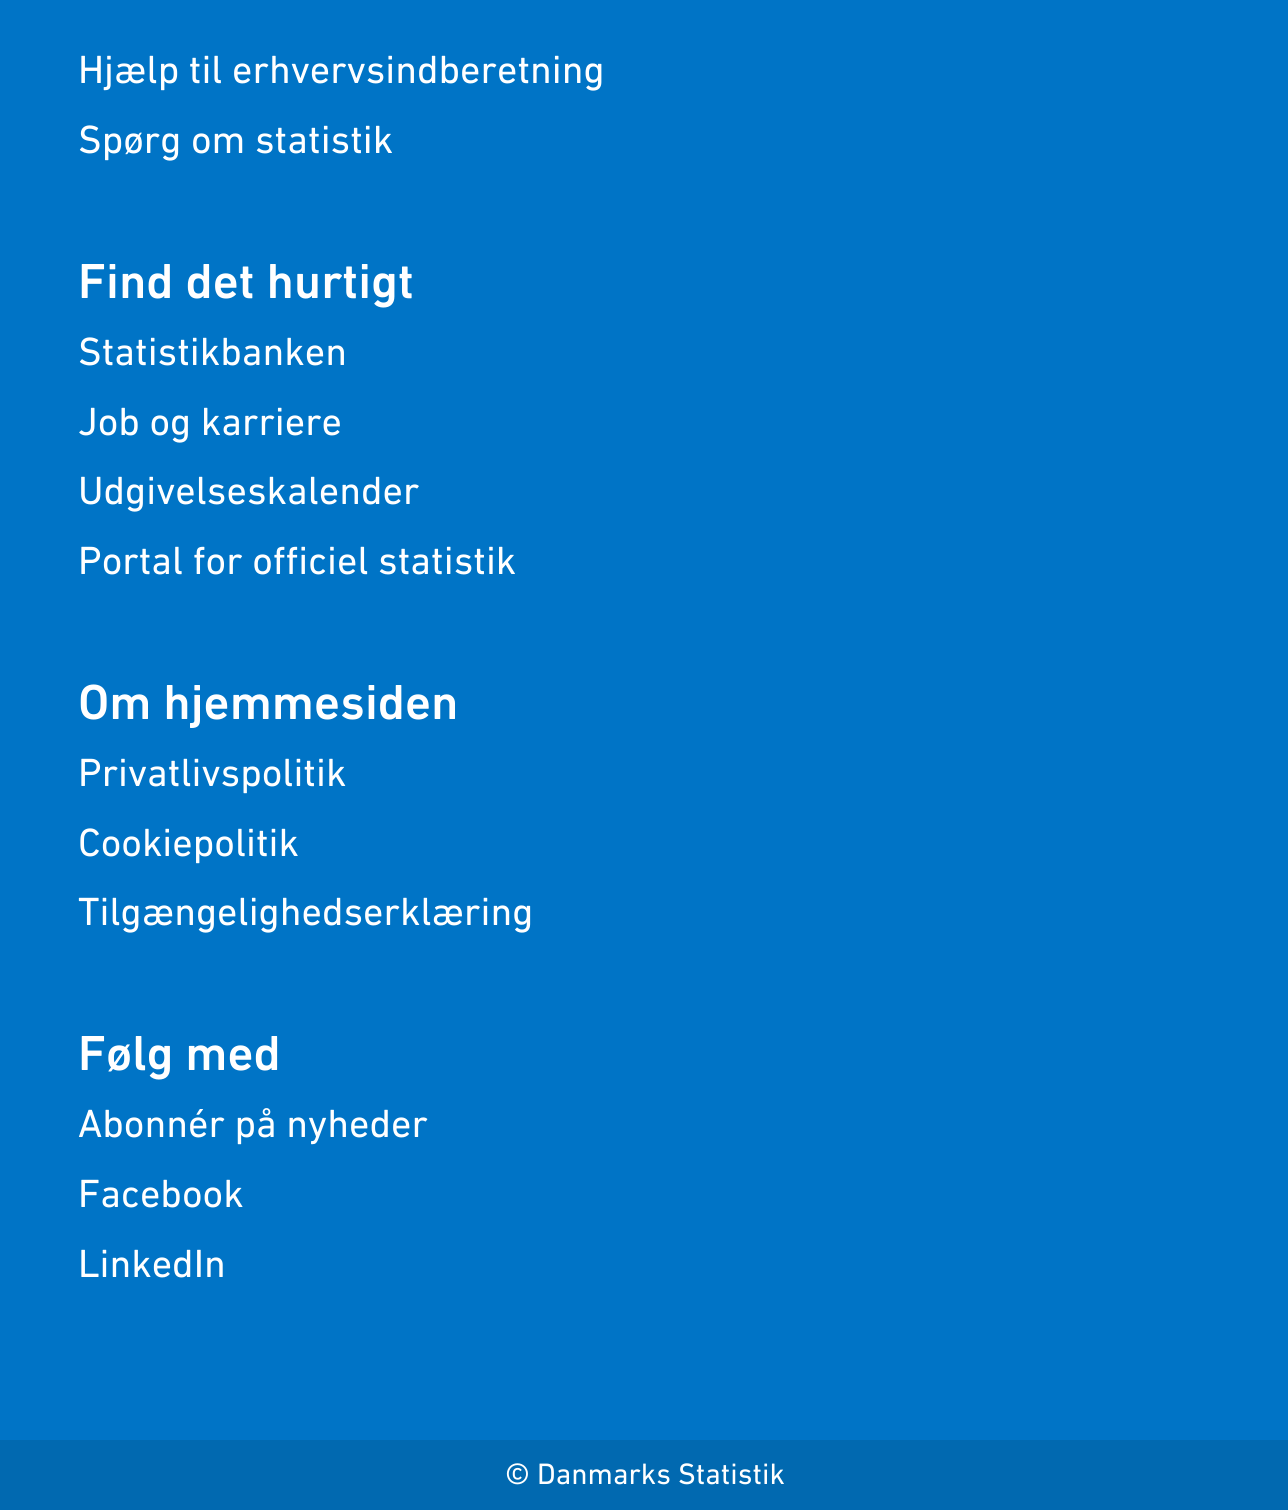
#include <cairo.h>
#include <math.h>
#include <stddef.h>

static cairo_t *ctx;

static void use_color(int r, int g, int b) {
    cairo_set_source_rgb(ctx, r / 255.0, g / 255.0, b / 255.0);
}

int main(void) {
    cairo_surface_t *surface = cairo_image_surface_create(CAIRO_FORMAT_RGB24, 1288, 1510);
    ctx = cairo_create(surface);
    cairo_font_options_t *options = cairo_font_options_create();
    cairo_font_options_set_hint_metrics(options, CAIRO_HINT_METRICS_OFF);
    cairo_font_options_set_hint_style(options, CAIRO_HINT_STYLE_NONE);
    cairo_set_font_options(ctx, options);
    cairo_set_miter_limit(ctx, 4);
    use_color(0, 116, 198);
    cairo_paint(ctx);
    cairo_select_font_face(ctx, "DIN Next", CAIRO_FONT_SLANT_NORMAL, CAIRO_FONT_WEIGHT_NORMAL);
    cairo_set_font_size(ctx, 40);
    use_color(255, 255, 255);
    cairo_move_to(ctx, 78, 83);
    cairo_show_text(ctx, "Hjælp til erhvervsindberetning");
    cairo_move_to(ctx, 78, 153);
    cairo_show_text(ctx, "Spørg om statistik");
    cairo_select_font_face(ctx, "DIN Next Medium", CAIRO_FONT_SLANT_NORMAL, CAIRO_FONT_WEIGHT_NORMAL);
    cairo_set_font_size(ctx, 50);
    cairo_move_to(ctx, 78, 298);
    cairo_show_text(ctx, "Find det hurtigt");
    cairo_select_font_face(ctx, "DIN Next", CAIRO_FONT_SLANT_NORMAL, CAIRO_FONT_WEIGHT_NORMAL);
    cairo_set_font_size(ctx, 40);
    cairo_move_to(ctx, 78, 365);
    cairo_show_text(ctx, "Statistikbanken");
    cairo_move_to(ctx, 78, 435);
    cairo_show_text(ctx, "Job og karriere");
    cairo_move_to(ctx, 78, 504);
    cairo_show_text(ctx, "Udgivelseskalender");
    cairo_move_to(ctx, 78, 574);
    cairo_show_text(ctx, "Portal for officiel statistik");
    cairo_select_font_face(ctx, "DIN Next Medium", CAIRO_FONT_SLANT_NORMAL, CAIRO_FONT_WEIGHT_NORMAL);
    cairo_set_font_size(ctx, 50);
    cairo_move_to(ctx, 78, 719);
    cairo_show_text(ctx, "Om hjemmesiden");
    cairo_select_font_face(ctx, "DIN Next", CAIRO_FONT_SLANT_NORMAL, CAIRO_FONT_WEIGHT_NORMAL);
    cairo_set_font_size(ctx, 40);
    cairo_move_to(ctx, 78, 786);
    cairo_show_text(ctx, "Privatlivspolitik");
    cairo_move_to(ctx, 78, 856);
    cairo_show_text(ctx, "Cookiepolitik");
    cairo_move_to(ctx, 78, 925);
    cairo_show_text(ctx, "Tilgængelighedserklæring");
    cairo_select_font_face(ctx, "DIN Next Medium", CAIRO_FONT_SLANT_NORMAL, CAIRO_FONT_WEIGHT_NORMAL);
    cairo_set_font_size(ctx, 50);
    cairo_move_to(ctx, 78, 1070);
    cairo_show_text(ctx, "Følg med");
    cairo_select_font_face(ctx, "DIN Next", CAIRO_FONT_SLANT_NORMAL, CAIRO_FONT_WEIGHT_NORMAL);
    cairo_set_font_size(ctx, 40);
    cairo_move_to(ctx, 78, 1137);
    cairo_show_text(ctx, "Abonnér på nyheder");
    cairo_move_to(ctx, 78, 1207);
    cairo_show_text(ctx, "Facebook");
    cairo_move_to(ctx, 78, 1277);
    cairo_show_text(ctx, "LinkedIn");
    use_color(1, 105, 176);
    cairo_rectangle(ctx, 0, 1440, 1288, 70);
    cairo_fill(ctx);
    cairo_set_font_size(ctx, 30);
    use_color(255, 255, 255);
    cairo_move_to(ctx, 505, 1484);
    cairo_show_text(ctx, "© Danmarks Statistik");
    cairo_surface_write_to_png(surface, "result.png");
    cairo_font_options_destroy(options);
    cairo_destroy(ctx);
    cairo_surface_destroy(surface);
    return 0;
}
